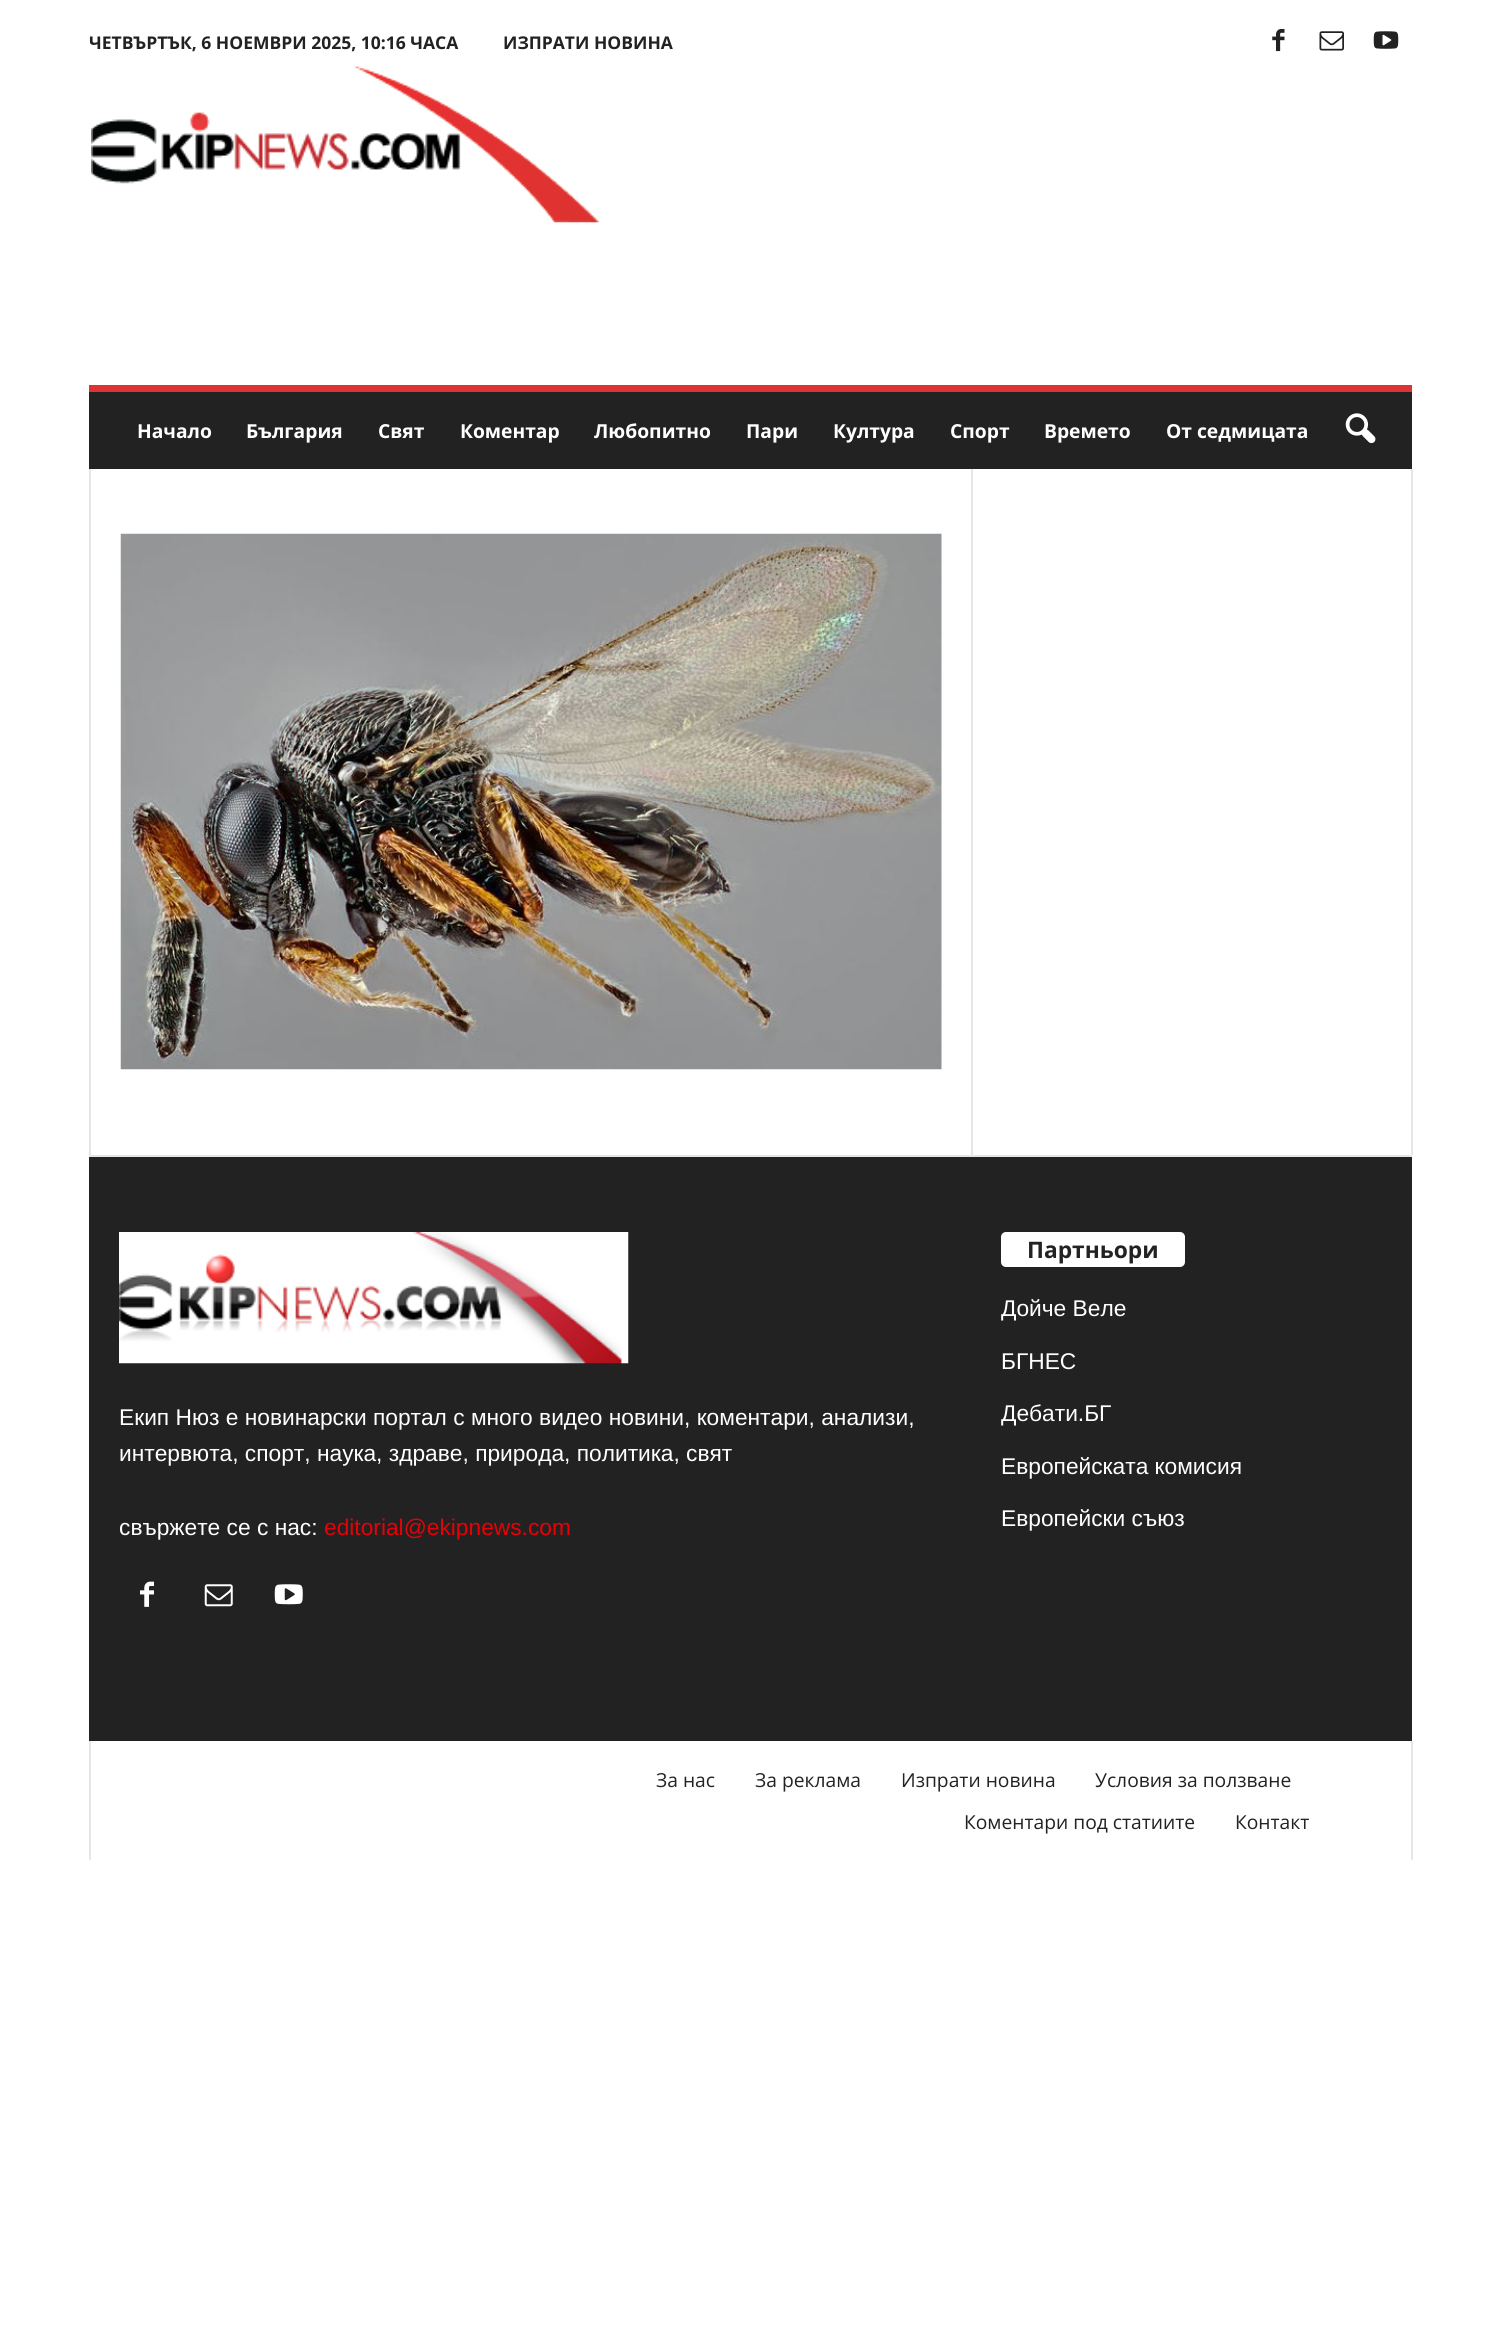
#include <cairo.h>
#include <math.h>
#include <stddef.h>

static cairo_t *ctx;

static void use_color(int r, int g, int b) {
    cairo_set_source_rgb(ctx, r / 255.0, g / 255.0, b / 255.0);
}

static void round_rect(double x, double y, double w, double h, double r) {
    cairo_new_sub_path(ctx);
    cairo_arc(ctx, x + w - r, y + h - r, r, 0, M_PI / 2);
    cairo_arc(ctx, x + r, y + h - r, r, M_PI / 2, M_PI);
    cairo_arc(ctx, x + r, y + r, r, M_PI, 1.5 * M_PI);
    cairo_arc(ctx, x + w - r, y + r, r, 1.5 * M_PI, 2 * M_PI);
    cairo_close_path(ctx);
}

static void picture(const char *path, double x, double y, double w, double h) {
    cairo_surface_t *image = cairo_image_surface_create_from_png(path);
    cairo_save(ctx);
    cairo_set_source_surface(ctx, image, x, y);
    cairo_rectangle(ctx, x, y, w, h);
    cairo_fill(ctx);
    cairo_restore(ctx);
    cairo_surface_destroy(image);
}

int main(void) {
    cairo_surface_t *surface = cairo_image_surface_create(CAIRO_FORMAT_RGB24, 1500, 2341);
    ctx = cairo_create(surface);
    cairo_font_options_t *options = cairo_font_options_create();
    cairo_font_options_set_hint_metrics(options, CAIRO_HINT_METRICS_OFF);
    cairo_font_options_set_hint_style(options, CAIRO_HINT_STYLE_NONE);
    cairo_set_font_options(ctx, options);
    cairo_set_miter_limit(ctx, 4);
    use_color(255, 255, 255);
    cairo_paint(ctx);
    cairo_select_font_face(ctx, "Open Sans", CAIRO_FONT_SLANT_NORMAL, CAIRO_FONT_WEIGHT_BOLD);
    cairo_set_font_size(ctx, 17.5);
    use_color(34, 34, 34);
    cairo_move_to(ctx, 89, 49);
    cairo_show_text(ctx, "ЧЕТВЪРТЪК, 6 НОЕМВРИ 2025, 10:16 ЧАСА");
    cairo_move_to(ctx, 503, 49);
    cairo_show_text(ctx, "ИЗПРАТИ НОВИНА");
    picture("img1.png", 1272, 29, 13, 23);
    picture("img2.png", 1319, 31, 25, 20);
    picture("img3.png", 1373, 31, 26, 18);
    picture("img4.png", 91, 65, 508, 158);
    cairo_rectangle(ctx, 89, 392, 1323, 77);
    cairo_fill(ctx);
    use_color(221, 51, 51);
    cairo_rectangle(ctx, 89, 385, 1323, 7);
    cairo_fill(ctx);
    cairo_set_font_size(ctx, 19.25);
    use_color(255, 255, 255);
    cairo_move_to(ctx, 137, 438);
    cairo_show_text(ctx, "Начало");
    cairo_move_to(ctx, 246, 438);
    cairo_show_text(ctx, "България");
    cairo_move_to(ctx, 378, 438);
    cairo_show_text(ctx, "Свят");
    cairo_move_to(ctx, 460, 438);
    cairo_show_text(ctx, "Коментар");
    cairo_move_to(ctx, 594, 438);
    cairo_show_text(ctx, "Любопитно");
    cairo_move_to(ctx, 746, 438);
    cairo_show_text(ctx, "Пари");
    cairo_move_to(ctx, 833, 438);
    cairo_show_text(ctx, "Култура");
    cairo_move_to(ctx, 950, 438);
    cairo_show_text(ctx, "Спорт");
    cairo_move_to(ctx, 1044, 438);
    cairo_show_text(ctx, "Времето");
    cairo_move_to(ctx, 1166, 438);
    cairo_show_text(ctx, "От седмицата");
    picture("img5.png", 1345, 413, 31, 31);
    use_color(230, 230, 230);
    cairo_rectangle(ctx, 89, 1155, 1323, 2);
    cairo_fill(ctx);
    cairo_rectangle(ctx, 89, 469, 2, 686);
    cairo_fill(ctx);
    picture("img6.png", 120, 533, 822, 537);
    cairo_rectangle(ctx, 971, 469, 2, 686);
    cairo_fill(ctx);
    cairo_rectangle(ctx, 1411, 469, 2, 686);
    cairo_fill(ctx);
    use_color(34, 34, 34);
    cairo_rectangle(ctx, 89, 1157, 1323, 584);
    cairo_fill(ctx);
    picture("img7.png", 119, 1232, 510, 132);
    cairo_select_font_face(ctx, "Liberation Sans", CAIRO_FONT_SLANT_NORMAL, CAIRO_FONT_WEIGHT_NORMAL);
    cairo_set_font_size(ctx, 22.75);
    use_color(255, 255, 255);
    cairo_move_to(ctx, 119, 1425);
    cairo_show_text(ctx, "Екип Нюз е новинарски портал с много видео новини, коментари, анализи,");
    cairo_move_to(ctx, 119, 1461);
    cairo_show_text(ctx, "интервюта, спорт, наука, здраве, природа, политика, свят");
    cairo_move_to(ctx, 119, 1535);
    cairo_show_text(ctx, "свържете се с нас:");
    use_color(232, 0, 7);
    cairo_move_to(ctx, 324, 1535);
    cairo_show_text(ctx, "editorial@ekipnews.com");
    picture("img8.png", 140, 1581, 14, 26);
    picture("img9.png", 204, 1584, 29, 23);
    picture("img10.png", 274, 1584, 29, 21);
    use_color(255, 255, 255);
    round_rect(1001, 1232, 184, 35, 5);
    cairo_fill(ctx);
    cairo_select_font_face(ctx, "Open Sans", CAIRO_FONT_SLANT_NORMAL, CAIRO_FONT_WEIGHT_BOLD);
    use_color(34, 34, 34);
    cairo_move_to(ctx, 1027, 1258);
    cairo_show_text(ctx, "Партньори");
    cairo_select_font_face(ctx, "Liberation Sans", CAIRO_FONT_SLANT_NORMAL, CAIRO_FONT_WEIGHT_NORMAL);
    use_color(255, 255, 255);
    cairo_move_to(ctx, 1001, 1316);
    cairo_show_text(ctx, "Дойче Веле");
    cairo_move_to(ctx, 1001, 1369);
    cairo_show_text(ctx, "БГНЕС");
    cairo_move_to(ctx, 1001, 1421);
    cairo_show_text(ctx, "Дебати.БГ");
    cairo_move_to(ctx, 1001, 1474);
    cairo_show_text(ctx, "Европейската комисия");
    cairo_move_to(ctx, 1001, 1526);
    cairo_show_text(ctx, "Европейски съюз");
    use_color(230, 230, 230);
    cairo_rectangle(ctx, 89, 1741, 2, 119);
    cairo_fill(ctx);
    cairo_select_font_face(ctx, "Open Sans", CAIRO_FONT_SLANT_NORMAL, CAIRO_FONT_WEIGHT_NORMAL);
    cairo_set_font_size(ctx, 19.25);
    use_color(34, 34, 34);
    cairo_move_to(ctx, 656, 1787);
    cairo_show_text(ctx, "За нас");
    cairo_move_to(ctx, 755, 1787);
    cairo_show_text(ctx, "За реклама");
    cairo_move_to(ctx, 901, 1787);
    cairo_show_text(ctx, "Изпрати новина");
    cairo_move_to(ctx, 1095, 1787);
    cairo_show_text(ctx, "Условия за ползване");
    cairo_move_to(ctx, 964, 1829);
    cairo_show_text(ctx, "Коментари под статиите");
    cairo_move_to(ctx, 1235, 1829);
    cairo_show_text(ctx, "Контакт");
    use_color(230, 230, 230);
    cairo_rectangle(ctx, 1411, 1741, 2, 119);
    cairo_fill(ctx);
    cairo_surface_write_to_png(surface, "result.png");
    cairo_font_options_destroy(options);
    cairo_destroy(ctx);
    cairo_surface_destroy(surface);
    return 0;
}
